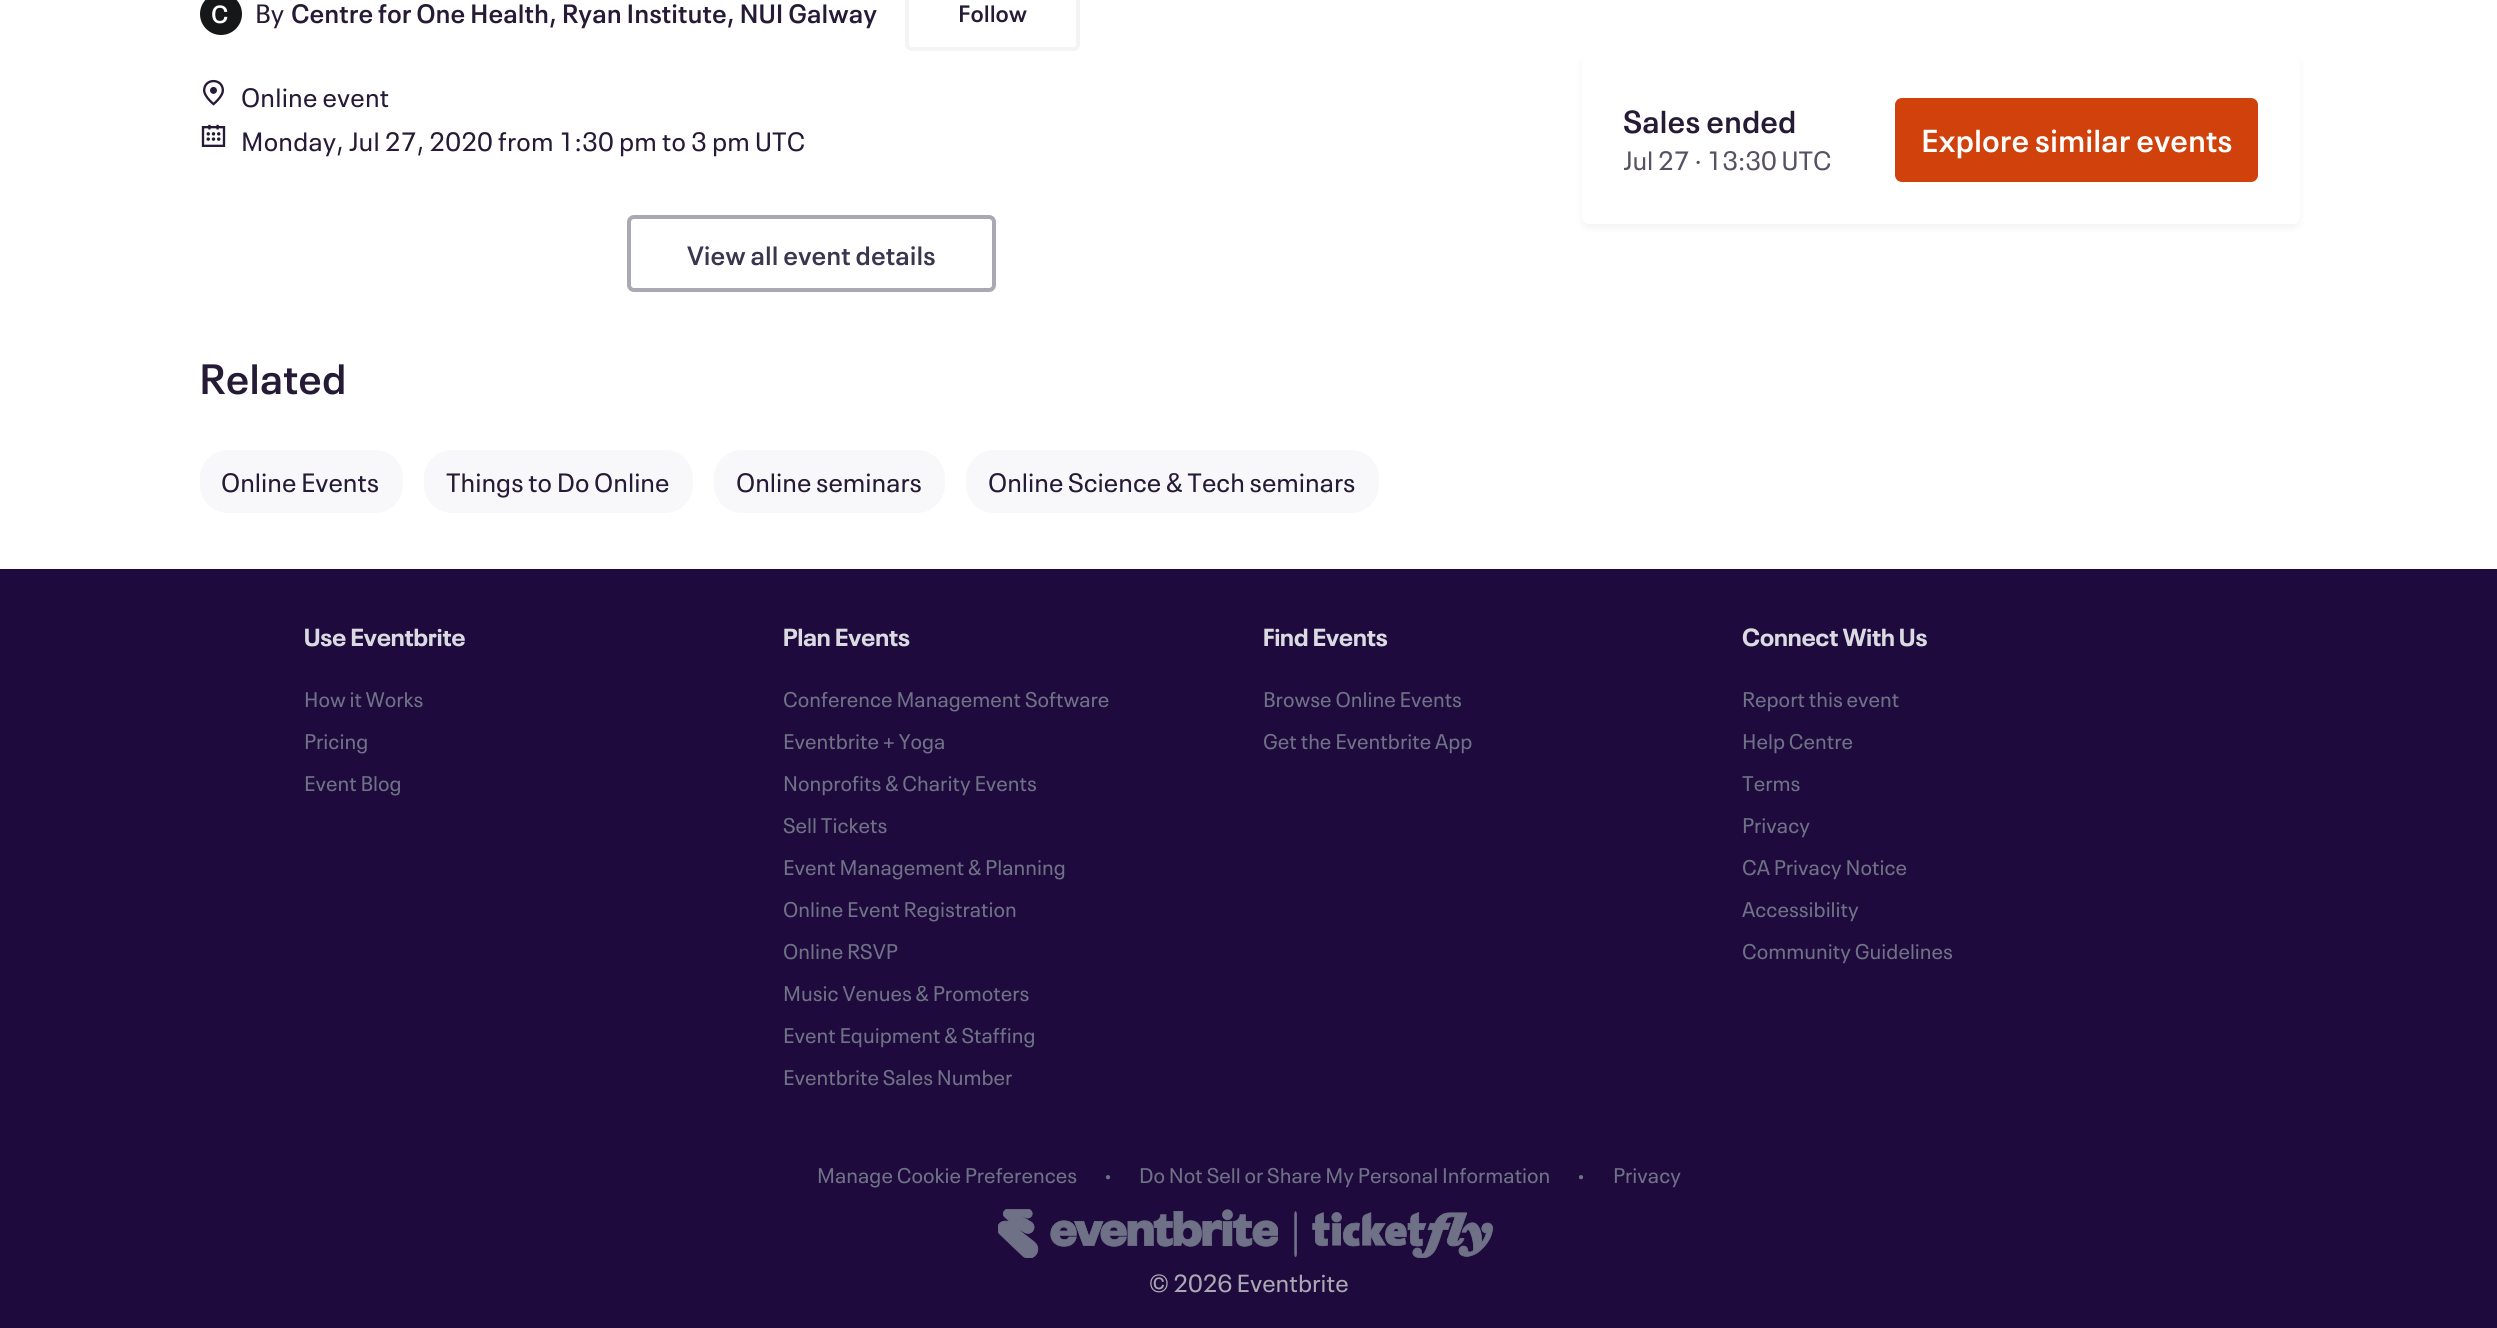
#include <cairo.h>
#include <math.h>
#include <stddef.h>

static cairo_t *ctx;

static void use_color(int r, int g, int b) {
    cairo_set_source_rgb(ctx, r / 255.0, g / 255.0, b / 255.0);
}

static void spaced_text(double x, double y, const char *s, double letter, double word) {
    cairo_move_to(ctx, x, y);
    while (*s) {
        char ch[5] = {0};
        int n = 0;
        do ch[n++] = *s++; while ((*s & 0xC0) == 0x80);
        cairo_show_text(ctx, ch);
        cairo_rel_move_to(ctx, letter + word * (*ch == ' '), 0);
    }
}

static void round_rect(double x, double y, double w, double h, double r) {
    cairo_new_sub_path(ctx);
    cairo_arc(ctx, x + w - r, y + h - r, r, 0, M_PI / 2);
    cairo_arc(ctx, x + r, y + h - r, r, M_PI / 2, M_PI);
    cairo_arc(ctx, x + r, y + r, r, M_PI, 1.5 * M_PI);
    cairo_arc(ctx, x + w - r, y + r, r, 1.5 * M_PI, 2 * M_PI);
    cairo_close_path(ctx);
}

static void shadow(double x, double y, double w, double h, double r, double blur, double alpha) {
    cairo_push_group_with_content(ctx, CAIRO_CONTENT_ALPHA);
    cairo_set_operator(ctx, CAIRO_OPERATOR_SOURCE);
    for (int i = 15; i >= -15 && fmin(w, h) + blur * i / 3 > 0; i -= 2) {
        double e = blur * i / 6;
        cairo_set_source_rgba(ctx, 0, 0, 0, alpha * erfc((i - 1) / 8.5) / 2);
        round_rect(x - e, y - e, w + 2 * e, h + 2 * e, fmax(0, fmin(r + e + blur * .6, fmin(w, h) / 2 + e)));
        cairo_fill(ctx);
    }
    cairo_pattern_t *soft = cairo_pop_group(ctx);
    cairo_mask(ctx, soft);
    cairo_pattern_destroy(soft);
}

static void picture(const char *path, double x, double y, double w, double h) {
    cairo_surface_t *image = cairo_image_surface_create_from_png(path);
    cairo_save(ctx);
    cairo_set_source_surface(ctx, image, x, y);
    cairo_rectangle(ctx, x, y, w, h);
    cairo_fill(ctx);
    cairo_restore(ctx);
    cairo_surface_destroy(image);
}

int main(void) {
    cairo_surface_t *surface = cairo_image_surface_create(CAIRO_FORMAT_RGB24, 2497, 1328);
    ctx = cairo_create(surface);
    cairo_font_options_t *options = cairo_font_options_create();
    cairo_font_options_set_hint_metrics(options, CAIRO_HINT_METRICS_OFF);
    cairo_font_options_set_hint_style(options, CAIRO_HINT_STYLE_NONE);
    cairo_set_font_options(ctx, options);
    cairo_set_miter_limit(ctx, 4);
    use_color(255, 255, 255);
    cairo_paint(ctx);
    use_color(22, 23, 25);
    cairo_arc(ctx, 221, 14, 21, 0, 2 * M_PI);
    cairo_fill(ctx);
    cairo_select_font_face(ctx, "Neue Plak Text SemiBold", CAIRO_FONT_SLANT_NORMAL, CAIRO_FONT_WEIGHT_NORMAL);
    cairo_set_font_size(ctx, 24.5);
    use_color(255, 255, 255);
    cairo_move_to(ctx, 211, 23);
    cairo_show_text(ctx, "C");
    cairo_select_font_face(ctx, "Neue Plak Text", CAIRO_FONT_SLANT_NORMAL, CAIRO_FONT_WEIGHT_NORMAL);
    cairo_set_font_size(ctx, 26.25);
    use_color(38, 27, 54);
    cairo_move_to(ctx, 255, 23);
    cairo_show_text(ctx, "By");
    cairo_select_font_face(ctx, "Neue Plak Text SemiBold", CAIRO_FONT_SLANT_NORMAL, CAIRO_FONT_WEIGHT_NORMAL);
    cairo_move_to(ctx, 291, 23);
    cairo_show_text(ctx, "Centre for One Health, Ryan Institute, NUI Galway");
    round_rect(907, -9, 171, 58, 5);
    use_color(244, 244, 245);
    cairo_set_line_width(ctx, 4);
    cairo_stroke(ctx);
    cairo_set_font_size(ctx, 23.5);
    use_color(38, 27, 54);
    cairo_move_to(ctx, 958, 22);
    cairo_show_text(ctx, "Follow");
    picture("img1.png", 203, 79, 21, 27);
    cairo_select_font_face(ctx, "Neue Plak Text", CAIRO_FONT_SLANT_NORMAL, CAIRO_FONT_WEIGHT_NORMAL);
    cairo_set_font_size(ctx, 26.25);
    spaced_text(241, 107, "Online event", 0.2, 0);
    picture("img2.png", 201, 124, 25, 23);
    spaced_text(241, 151, "Monday, Jul 27, 2020 from 1:30 pm to 3 pm UTC", 0.2, 0);
    round_rect(629, 217, 365, 73, 5);
    use_color(169, 168, 179);
    cairo_stroke(ctx);
    cairo_select_font_face(ctx, "Neue Plak Text SemiBold", CAIRO_FONT_SLANT_NORMAL, CAIRO_FONT_WEIGHT_NORMAL);
    use_color(57, 54, 79);
    cairo_move_to(ctx, 687, 265);
    cairo_show_text(ctx, "View all event details");
    cairo_set_font_size(ctx, 42);
    use_color(38, 27, 54);
    cairo_move_to(ctx, 199, 394);
    cairo_show_text(ctx, "Related");
    use_color(248, 247, 250);
    round_rect(200, 450, 203, 63, 28);
    cairo_fill(ctx);
    cairo_select_font_face(ctx, "Neue Plak Text", CAIRO_FONT_SLANT_NORMAL, CAIRO_FONT_WEIGHT_NORMAL);
    cairo_set_font_size(ctx, 26.25);
    use_color(38, 27, 54);
    cairo_move_to(ctx, 221, 492);
    cairo_show_text(ctx, "Online Events");
    use_color(248, 247, 250);
    round_rect(424, 450, 269, 63, 28);
    cairo_fill(ctx);
    use_color(38, 27, 54);
    cairo_move_to(ctx, 446, 492);
    cairo_show_text(ctx, "Things to Do Online");
    use_color(248, 247, 250);
    round_rect(714, 450, 231, 63, 28);
    cairo_fill(ctx);
    use_color(38, 27, 54);
    cairo_move_to(ctx, 736, 492);
    cairo_show_text(ctx, "Online seminars");
    use_color(248, 247, 250);
    round_rect(966, 450, 413, 63, 28);
    cairo_fill(ctx);
    use_color(38, 27, 54);
    cairo_move_to(ctx, 988, 492);
    cairo_show_text(ctx, "Online Science & Tech seminars");
    use_color(0, 0, 0);
    shadow(1582, 60, 718, 168, 7, 3.5, 0.05);
    use_color(255, 255, 255);
    round_rect(1582, 56, 718, 168, 7);
    cairo_fill(ctx);
    cairo_select_font_face(ctx, "Neue Plak Text SemiBold", CAIRO_FONT_SLANT_NORMAL, CAIRO_FONT_WEIGHT_NORMAL);
    cairo_set_font_size(ctx, 31.5);
    use_color(38, 27, 54);
    cairo_move_to(ctx, 1623, 133);
    cairo_show_text(ctx, "Sales ended");
    cairo_save(ctx);
    cairo_rectangle(ctx, 1624, 144, 215, 35);
    cairo_clip(ctx);
    cairo_select_font_face(ctx, "Neue Plak Text", CAIRO_FONT_SLANT_NORMAL, CAIRO_FONT_WEIGHT_NORMAL);
    cairo_set_font_size(ctx, 26.25);
    use_color(88, 81, 99);
    cairo_move_to(ctx, 1623, 170);
    cairo_show_text(ctx, "Jul 27 · 13:30 UTC");
    cairo_restore(ctx);
    use_color(209, 65, 12);
    round_rect(1895, 98, 363, 84, 7);
    cairo_fill(ctx);
    use_color(255, 255, 255);
    cairo_move_to(ctx, 1921, 152);
    cairo_show_text(ctx, "Explore similar events");
    use_color(30, 10, 60);
    cairo_rectangle(ctx, 0, 569, 2497, 759);
    cairo_fill(ctx);
    cairo_select_font_face(ctx, "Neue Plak", CAIRO_FONT_SLANT_NORMAL, CAIRO_FONT_WEIGHT_BOLD);
    cairo_set_font_size(ctx, 24.5);
    use_color(219, 218, 227);
    cairo_move_to(ctx, 304, 646);
    cairo_show_text(ctx, "Use Eventbrite");
    cairo_select_font_face(ctx, "Neue Plak Text", CAIRO_FONT_SLANT_NORMAL, CAIRO_FONT_WEIGHT_NORMAL);
    cairo_set_font_size(ctx, 21);
    use_color(111, 114, 135);
    cairo_move_to(ctx, 304, 707);
    cairo_show_text(ctx, "How it Works");
    cairo_move_to(ctx, 304, 749);
    cairo_show_text(ctx, "Pricing");
    cairo_move_to(ctx, 304, 791);
    cairo_show_text(ctx, "Event Blog");
    cairo_select_font_face(ctx, "Neue Plak", CAIRO_FONT_SLANT_NORMAL, CAIRO_FONT_WEIGHT_BOLD);
    cairo_set_font_size(ctx, 24.5);
    use_color(219, 218, 227);
    cairo_move_to(ctx, 783, 646);
    cairo_show_text(ctx, "Plan Events");
    cairo_select_font_face(ctx, "Neue Plak Text", CAIRO_FONT_SLANT_NORMAL, CAIRO_FONT_WEIGHT_NORMAL);
    cairo_set_font_size(ctx, 21);
    use_color(111, 114, 135);
    cairo_move_to(ctx, 783, 707);
    cairo_show_text(ctx, "Conference Management Software");
    cairo_move_to(ctx, 783, 749);
    cairo_show_text(ctx, "Eventbrite + Yoga");
    cairo_move_to(ctx, 783, 791);
    cairo_show_text(ctx, "Nonprofits & Charity Events");
    cairo_move_to(ctx, 783, 833);
    cairo_show_text(ctx, "Sell Tickets");
    cairo_move_to(ctx, 783, 875);
    cairo_show_text(ctx, "Event Management & Planning");
    cairo_move_to(ctx, 783, 917);
    cairo_show_text(ctx, "Online Event Registration");
    cairo_move_to(ctx, 783, 959);
    cairo_show_text(ctx, "Online RSVP");
    cairo_move_to(ctx, 783, 1001);
    cairo_show_text(ctx, "Music Venues & Promoters");
    cairo_move_to(ctx, 783, 1043);
    cairo_show_text(ctx, "Event Equipment & Staffing");
    cairo_move_to(ctx, 783, 1085);
    cairo_show_text(ctx, "Eventbrite Sales Number");
    cairo_select_font_face(ctx, "Neue Plak", CAIRO_FONT_SLANT_NORMAL, CAIRO_FONT_WEIGHT_BOLD);
    cairo_set_font_size(ctx, 24.5);
    use_color(219, 218, 227);
    cairo_move_to(ctx, 1263, 646);
    cairo_show_text(ctx, "Find Events");
    cairo_select_font_face(ctx, "Neue Plak Text", CAIRO_FONT_SLANT_NORMAL, CAIRO_FONT_WEIGHT_NORMAL);
    cairo_set_font_size(ctx, 21);
    use_color(111, 114, 135);
    cairo_move_to(ctx, 1263, 707);
    cairo_show_text(ctx, "Browse Online Events");
    cairo_move_to(ctx, 1263, 749);
    cairo_show_text(ctx, "Get the Eventbrite App");
    cairo_select_font_face(ctx, "Neue Plak", CAIRO_FONT_SLANT_NORMAL, CAIRO_FONT_WEIGHT_BOLD);
    cairo_set_font_size(ctx, 24.5);
    use_color(219, 218, 227);
    cairo_move_to(ctx, 1742, 646);
    cairo_show_text(ctx, "Connect With Us");
    cairo_select_font_face(ctx, "Neue Plak Text", CAIRO_FONT_SLANT_NORMAL, CAIRO_FONT_WEIGHT_NORMAL);
    cairo_set_font_size(ctx, 21);
    use_color(111, 114, 135);
    cairo_move_to(ctx, 1742, 707);
    cairo_show_text(ctx, "Report this event");
    cairo_move_to(ctx, 1742, 749);
    cairo_show_text(ctx, "Help Centre");
    cairo_move_to(ctx, 1742, 791);
    cairo_show_text(ctx, "Terms");
    cairo_move_to(ctx, 1742, 833);
    cairo_show_text(ctx, "Privacy");
    cairo_move_to(ctx, 1742, 875);
    cairo_show_text(ctx, "CA Privacy Notice");
    cairo_move_to(ctx, 1742, 917);
    cairo_show_text(ctx, "Accessibility");
    cairo_move_to(ctx, 1742, 959);
    cairo_show_text(ctx, "Community Guidelines");
    cairo_move_to(ctx, 817, 1183);
    cairo_show_text(ctx, "Manage Cookie Preferences");
    cairo_select_font_face(ctx, "Liberation Sans", CAIRO_FONT_SLANT_NORMAL, CAIRO_FONT_WEIGHT_NORMAL);
    cairo_set_font_size(ctx, 10);
    cairo_move_to(ctx, 1105, 1180);
    cairo_show_text(ctx, "●");
    cairo_select_font_face(ctx, "Neue Plak Text", CAIRO_FONT_SLANT_NORMAL, CAIRO_FONT_WEIGHT_NORMAL);
    cairo_set_font_size(ctx, 21);
    cairo_move_to(ctx, 1139, 1183);
    cairo_show_text(ctx, "Do Not Sell or Share My Personal Information");
    cairo_select_font_face(ctx, "Liberation Sans", CAIRO_FONT_SLANT_NORMAL, CAIRO_FONT_WEIGHT_NORMAL);
    cairo_set_font_size(ctx, 10);
    cairo_move_to(ctx, 1578, 1180);
    cairo_show_text(ctx, "●");
    cairo_select_font_face(ctx, "Neue Plak Text", CAIRO_FONT_SLANT_NORMAL, CAIRO_FONT_WEIGHT_NORMAL);
    cairo_set_font_size(ctx, 21);
    cairo_move_to(ctx, 1613, 1183);
    cairo_show_text(ctx, "Privacy");
    picture("img3.png", 998, 1209, 496, 49);
    cairo_set_font_size(ctx, 24.5);
    use_color(169, 168, 179);
    cairo_move_to(ctx, 1149, 1292);
    cairo_show_text(ctx, "© 2026 Eventbrite");
    cairo_surface_write_to_png(surface, "result.png");
    cairo_font_options_destroy(options);
    cairo_destroy(ctx);
    cairo_surface_destroy(surface);
    return 0;
}
